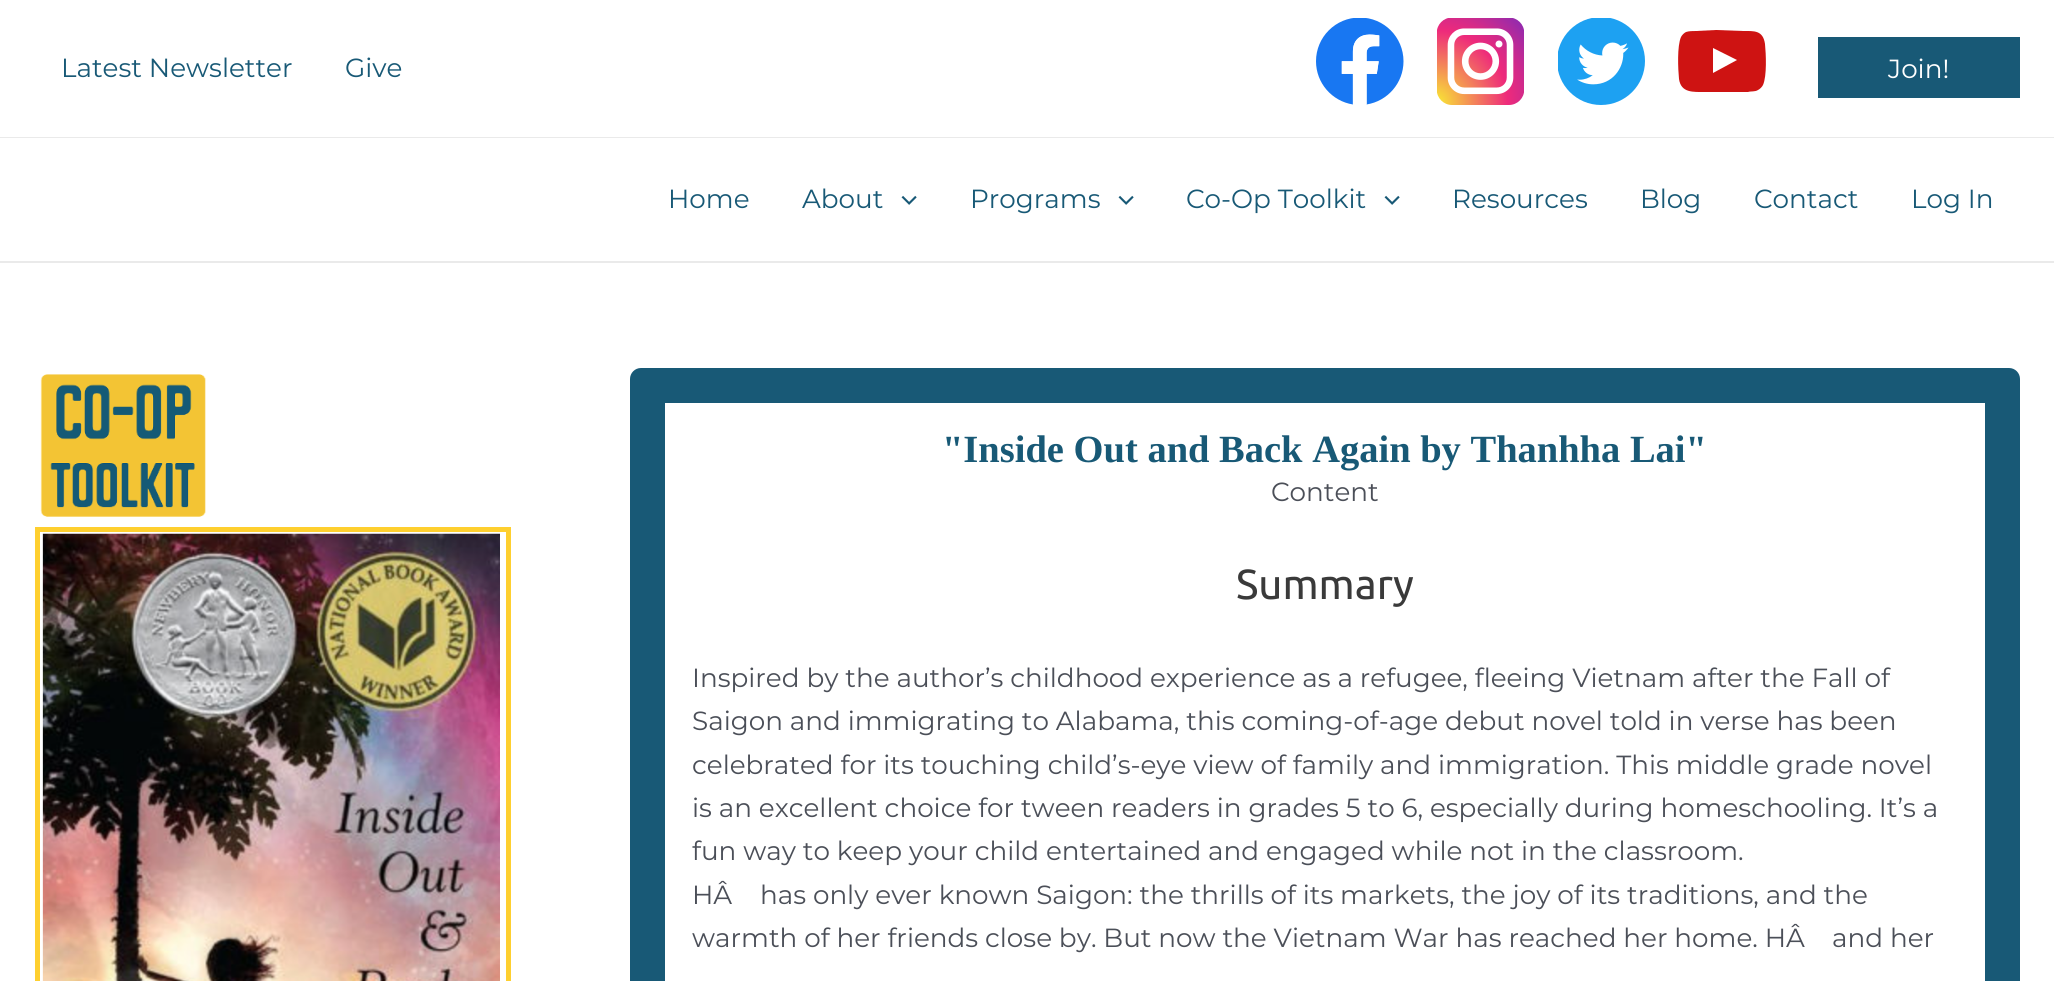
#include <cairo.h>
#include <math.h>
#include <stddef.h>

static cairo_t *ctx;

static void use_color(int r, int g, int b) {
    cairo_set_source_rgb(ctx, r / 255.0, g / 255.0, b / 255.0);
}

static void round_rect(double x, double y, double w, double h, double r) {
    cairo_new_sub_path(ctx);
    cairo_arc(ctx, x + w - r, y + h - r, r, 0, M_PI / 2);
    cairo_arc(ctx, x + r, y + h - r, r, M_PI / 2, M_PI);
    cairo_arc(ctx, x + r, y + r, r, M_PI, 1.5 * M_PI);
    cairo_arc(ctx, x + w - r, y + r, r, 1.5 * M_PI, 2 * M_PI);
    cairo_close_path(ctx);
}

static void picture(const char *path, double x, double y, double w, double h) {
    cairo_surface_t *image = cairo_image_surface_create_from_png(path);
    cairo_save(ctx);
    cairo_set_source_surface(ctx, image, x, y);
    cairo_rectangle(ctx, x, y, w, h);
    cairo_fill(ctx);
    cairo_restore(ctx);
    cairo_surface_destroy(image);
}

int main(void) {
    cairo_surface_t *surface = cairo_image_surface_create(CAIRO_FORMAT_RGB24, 2054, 981);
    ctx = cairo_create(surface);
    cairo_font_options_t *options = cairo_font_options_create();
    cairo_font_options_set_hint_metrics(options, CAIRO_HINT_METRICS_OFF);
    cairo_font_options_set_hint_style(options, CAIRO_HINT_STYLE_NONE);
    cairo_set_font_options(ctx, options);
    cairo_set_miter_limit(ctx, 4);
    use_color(255, 255, 255);
    cairo_paint(ctx);
    use_color(234, 234, 234);
    cairo_rectangle(ctx, 0, 137, 2054, 1);
    cairo_fill(ctx);
    cairo_select_font_face(ctx, "Montserrat Thin", CAIRO_FONT_SLANT_NORMAL, CAIRO_FONT_WEIGHT_NORMAL);
    cairo_set_font_size(ctx, 26.25);
    use_color(24, 89, 118);
    cairo_move_to(ctx, 61, 77);
    cairo_show_text(ctx, "Latest Newsletter");
    cairo_move_to(ctx, 345, 77);
    cairo_show_text(ctx, "Give");
    picture("img1.png", 1316, 18, 88, 87);
    picture("img2.png", 1437, 18, 87, 87);
    picture("img3.png", 1558, 18, 87, 87);
    use_color(206, 19, 18);
    cairo_set_fill_rule(ctx, CAIRO_FILL_RULE_EVEN_ODD);
    cairo_new_path(ctx);
    cairo_move_to(ctx, 1765, 44);
    cairo_curve_to(ctx, 1763, 30, 1754, 31, 1743, 31);
    cairo_line_to(ctx, 1716, 30);
    cairo_line_to(ctx, 1696, 31);
    cairo_curve_to(ctx, 1693, 31, 1689, 31, 1686, 32);
    cairo_curve_to(ctx, 1684, 33, 1682, 35, 1681, 37);
    cairo_curve_to(ctx, 1677, 46, 1678, 69, 1679, 79);
    cairo_curve_to(ctx, 1681, 93, 1693, 92, 1705, 92);
    cairo_line_to(ctx, 1728, 92);
    cairo_line_to(ctx, 1748, 92);
    cairo_curve_to(ctx, 1751, 91, 1755, 92, 1758, 90);
    cairo_curve_to(ctx, 1760, 89, 1762, 87, 1763, 85);
    cairo_curve_to(ctx, 1767, 76, 1766, 54, 1765, 44);
    cairo_close_path(ctx);
    cairo_move_to(ctx, 1713, 73);
    cairo_line_to(ctx, 1713, 48);
    cairo_line_to(ctx, 1737, 60);
    cairo_close_path(ctx);
    cairo_fill(ctx);
    use_color(24, 89, 118);
    cairo_rectangle(ctx, 1818, 37, 202, 61);
    cairo_fill(ctx);
    use_color(255, 255, 255);
    cairo_move_to(ctx, 1888, 78);
    cairo_show_text(ctx, "Join!");
    use_color(234, 234, 234);
    cairo_rectangle(ctx, 0, 261, 2054, 2);
    cairo_fill(ctx);
    use_color(24, 89, 118);
    cairo_move_to(ctx, 668, 208);
    cairo_show_text(ctx, "Home");
    cairo_move_to(ctx, 802, 208);
    cairo_show_text(ctx, "About");
    picture("img4.png", 901, 195, 16, 10);
    cairo_move_to(ctx, 970, 208);
    cairo_show_text(ctx, "Programs");
    picture("img4.png", 1118, 195, 16, 10);
    cairo_move_to(ctx, 1186, 208);
    cairo_show_text(ctx, "Co-Op Toolkit");
    picture("img4.png", 1384, 195, 16, 10);
    cairo_move_to(ctx, 1452, 208);
    cairo_show_text(ctx, "Resources");
    cairo_move_to(ctx, 1640, 208);
    cairo_show_text(ctx, "Blog");
    cairo_move_to(ctx, 1754, 208);
    cairo_show_text(ctx, "Contact");
    cairo_move_to(ctx, 1911, 208);
    cairo_show_text(ctx, "Log In");
    picture("img5.png", 40, 374, 166, 143);
    cairo_rectangle(ctx, 37.5, 529.5, 471, 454);
    use_color(254, 207, 47);
    cairo_set_line_width(ctx, 5);
    cairo_stroke(ctx);
    picture("img6.png", 42, 533, 458, 448);
    use_color(24, 89, 118);
    round_rect(630, 368, 1390, 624, 11);
    cairo_fill(ctx);
    use_color(255, 255, 255);
    cairo_rectangle(ctx, 665, 403, 1320, 578);
    cairo_fill(ctx);
    cairo_select_font_face(ctx, "Liberation Serif", CAIRO_FONT_SLANT_NORMAL, CAIRO_FONT_WEIGHT_BOLD);
    cairo_set_font_size(ctx, 38.5);
    use_color(24, 89, 118);
    cairo_move_to(ctx, 942, 462);
    cairo_show_text(ctx, "\"Inside Out and Back Again by Thanhha Lai\"");
    cairo_select_font_face(ctx, "Montserrat Thin", CAIRO_FONT_SLANT_NORMAL, CAIRO_FONT_WEIGHT_NORMAL);
    cairo_set_font_size(ctx, 26.25);
    use_color(75, 79, 88);
    cairo_move_to(ctx, 1271, 501);
    cairo_show_text(ctx, "Content");
    cairo_select_font_face(ctx, "Ubuntu", CAIRO_FONT_SLANT_NORMAL, CAIRO_FONT_WEIGHT_NORMAL);
    cairo_set_font_size(ctx, 42);
    use_color(58, 58, 58);
    cairo_move_to(ctx, 1236, 599);
    cairo_show_text(ctx, "Summary");
    cairo_select_font_face(ctx, "Montserrat Thin", CAIRO_FONT_SLANT_NORMAL, CAIRO_FONT_WEIGHT_NORMAL);
    cairo_set_font_size(ctx, 26.25);
    use_color(75, 79, 88);
    cairo_move_to(ctx, 692, 687);
    cairo_show_text(ctx, "Inspired by the author’s childhood experience as a refugee, fleeing Vietnam after the Fall of");
    cairo_move_to(ctx, 692, 730);
    cairo_show_text(ctx, "Saigon and immigrating to Alabama, this coming-of-age debut novel told in verse has been");
    cairo_move_to(ctx, 692, 774);
    cairo_show_text(ctx, "celebrated for its touching child’s-eye view of family and immigration. This middle grade novel");
    cairo_move_to(ctx, 692, 817);
    cairo_show_text(ctx, "is an excellent choice for tween readers in grades 5 to 6, especially during homeschooling. It’s a");
    cairo_move_to(ctx, 692, 860);
    cairo_show_text(ctx, "fun way to keep your child entertained and engaged while not in the classroom.");
    cairo_move_to(ctx, 692, 904);
    cairo_show_text(ctx, "HÂ");
    cairo_move_to(ctx, 760, 904);
    cairo_show_text(ctx, "has only ever known Saigon: the thrills of its markets, the joy of its traditions, and the");
    cairo_move_to(ctx, 692, 947);
    cairo_show_text(ctx, "warmth of her friends close by. But now the Vietnam War has reached her home. HÂ");
    cairo_move_to(ctx, 1832, 947);
    cairo_show_text(ctx, "and her");
    cairo_surface_write_to_png(surface, "result.png");
    cairo_font_options_destroy(options);
    cairo_destroy(ctx);
    cairo_surface_destroy(surface);
    return 0;
}
